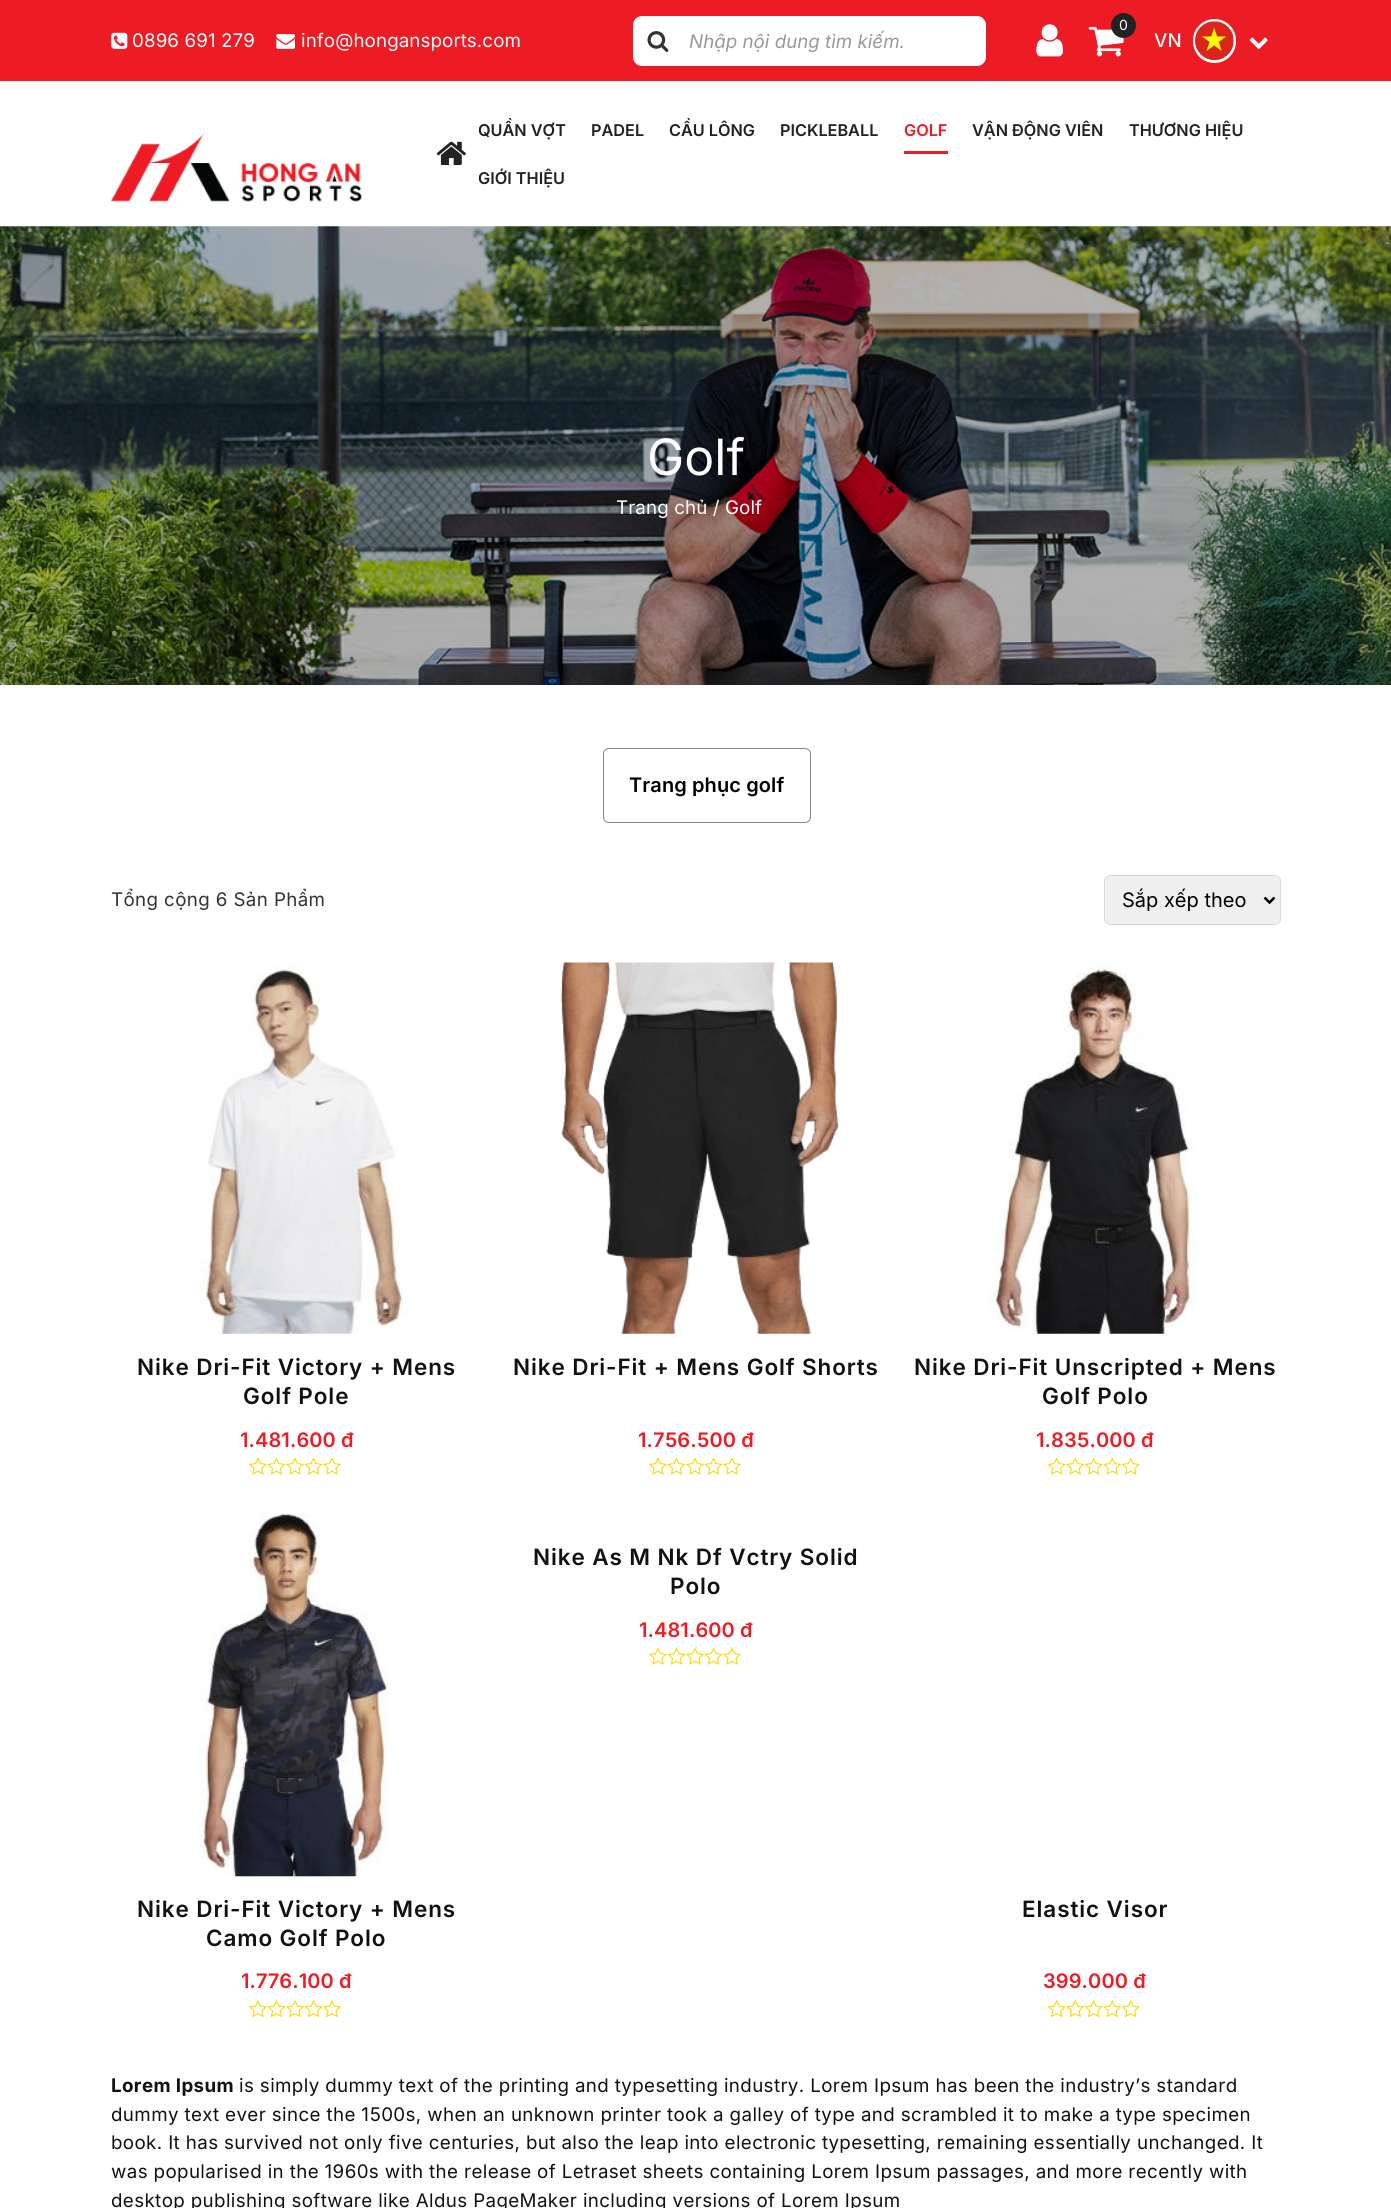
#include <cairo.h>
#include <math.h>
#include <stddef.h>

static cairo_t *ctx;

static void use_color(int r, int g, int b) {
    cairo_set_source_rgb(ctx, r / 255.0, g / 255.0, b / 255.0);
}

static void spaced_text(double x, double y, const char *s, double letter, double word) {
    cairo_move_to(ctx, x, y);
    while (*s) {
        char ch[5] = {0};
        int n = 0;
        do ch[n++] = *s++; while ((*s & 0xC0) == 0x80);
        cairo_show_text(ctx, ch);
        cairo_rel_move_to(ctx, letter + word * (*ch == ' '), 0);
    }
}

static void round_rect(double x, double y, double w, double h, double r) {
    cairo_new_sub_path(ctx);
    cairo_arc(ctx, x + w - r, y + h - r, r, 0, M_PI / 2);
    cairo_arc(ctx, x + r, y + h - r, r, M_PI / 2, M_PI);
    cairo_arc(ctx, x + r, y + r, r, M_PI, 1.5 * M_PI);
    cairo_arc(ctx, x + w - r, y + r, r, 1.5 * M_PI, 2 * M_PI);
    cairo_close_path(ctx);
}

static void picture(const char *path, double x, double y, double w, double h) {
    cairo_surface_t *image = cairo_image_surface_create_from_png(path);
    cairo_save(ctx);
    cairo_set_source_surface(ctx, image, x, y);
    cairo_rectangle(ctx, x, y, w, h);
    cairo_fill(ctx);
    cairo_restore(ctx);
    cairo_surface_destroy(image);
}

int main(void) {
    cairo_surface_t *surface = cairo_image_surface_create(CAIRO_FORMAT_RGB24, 1391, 2208);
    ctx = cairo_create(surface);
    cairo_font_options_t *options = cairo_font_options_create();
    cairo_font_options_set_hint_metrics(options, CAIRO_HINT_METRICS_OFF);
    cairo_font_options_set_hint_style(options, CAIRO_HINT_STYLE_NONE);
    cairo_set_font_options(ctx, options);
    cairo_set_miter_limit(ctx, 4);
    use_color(255, 255, 255);
    cairo_paint(ctx);
    use_color(237, 28, 36);
    cairo_rectangle(ctx, 0, 0, 1391, 81);
    cairo_fill(ctx);
    picture("img1.png", 111, 32, 17, 17);
    cairo_select_font_face(ctx, "Inter", CAIRO_FONT_SLANT_NORMAL, CAIRO_FONT_WEIGHT_NORMAL);
    cairo_set_font_size(ctx, 18.75);
    use_color(255, 255, 255);
    spaced_text(132, 47, "0896 691 279", 0.1, 0);
    picture("img2.png", 276, 34, 19, 15);
    spaced_text(301, 47, "info@hongansports.com", 0.1, 0);
    picture("img3.png", 1036, 24, 27, 33);
    picture("img4.png", 1088, 26, 36, 31);
    use_color(34, 34, 34);
    cairo_arc(ctx, 1123.5, 25.5, 12.5, 0, 2 * M_PI);
    cairo_fill(ctx);
    cairo_set_font_size(ctx, 14);
    use_color(255, 255, 255);
    spaced_text(1119, 30, "0", 0.1, 0);
    round_rect(633, 16, 353, 50, 9);
    cairo_fill(ctx);
    picture("img5.png", 647, 31, 22, 21);
    cairo_select_font_face(ctx, "Inter", CAIRO_FONT_SLANT_ITALIC, CAIRO_FONT_WEIGHT_NORMAL);
    cairo_set_font_size(ctx, 18.75);
    use_color(153, 153, 153);
    cairo_move_to(ctx, 689, 48);
    cairo_show_text(ctx, "Nhập nội dung tìm kiếm.");
    cairo_select_font_face(ctx, "Inter Medium", CAIRO_FONT_SLANT_NORMAL, CAIRO_FONT_WEIGHT_NORMAL);
    use_color(255, 255, 255);
    spaced_text(1154, 47, "VN", 0.1, 0);
    round_rect(1194.5, 20.5, 40, 41, 20);
    cairo_set_line_width(ctx, 3);
    cairo_stroke(ctx);
    picture("img6.png", 1195, 21, 39, 39);
    picture("img7.png", 1249, 37, 19, 13);
    picture("img8.png", 111, 134, 251, 68);
    picture("img9.png", 436, 141, 30, 24);
    cairo_select_font_face(ctx, "Inter SemiBold", CAIRO_FONT_SLANT_NORMAL, CAIRO_FONT_WEIGHT_NORMAL);
    cairo_set_font_size(ctx, 16.25);
    use_color(34, 34, 34);
    cairo_move_to(ctx, 478, 136);
    cairo_show_text(ctx, "QUẦN VỢT");
    cairo_move_to(ctx, 591, 136);
    cairo_show_text(ctx, "PADEL");
    cairo_move_to(ctx, 669, 136);
    cairo_show_text(ctx, "CẦU LÔNG");
    cairo_move_to(ctx, 780, 136);
    cairo_show_text(ctx, "PICKLEBALL");
    use_color(237, 28, 36);
    cairo_move_to(ctx, 904, 136);
    cairo_show_text(ctx, "GOLF");
    cairo_rectangle(ctx, 904, 151, 44, 3);
    cairo_fill(ctx);
    use_color(34, 34, 34);
    cairo_move_to(ctx, 972, 136);
    cairo_show_text(ctx, "VẬN ĐỘNG VIÊN");
    cairo_move_to(ctx, 1129, 136);
    cairo_show_text(ctx, "THƯƠNG HIỆU");
    cairo_move_to(ctx, 478, 184);
    cairo_show_text(ctx, "GIỚI THIỆU");
    picture("img10.png", 0, 226, 1391, 459);
    cairo_select_font_face(ctx, "Inter", CAIRO_FONT_SLANT_NORMAL, CAIRO_FONT_WEIGHT_NORMAL);
    cairo_set_font_size(ctx, 50);
    use_color(255, 255, 255);
    cairo_move_to(ctx, 647, 475);
    cairo_show_text(ctx, "Golf");
    cairo_set_font_size(ctx, 18.75);
    spaced_text(616, 514, "Trang chủ / Golf", 0.1, 0);
    round_rect(603.5, 748.5, 207, 74, 5.5);
    use_color(135, 135, 135);
    cairo_set_line_width(ctx, 1);
    cairo_stroke(ctx);
    cairo_select_font_face(ctx, "Inter SemiBold", CAIRO_FONT_SLANT_NORMAL, CAIRO_FONT_WEIGHT_NORMAL);
    cairo_set_font_size(ctx, 20);
    use_color(0, 0, 0);
    spaced_text(629, 792, "Trang phục golf", 0.1, 0);
    cairo_select_font_face(ctx, "Inter", CAIRO_FONT_SLANT_NORMAL, CAIRO_FONT_WEIGHT_NORMAL);
    cairo_set_font_size(ctx, 18.75);
    use_color(51, 51, 51);
    spaced_text(111, 906, "Tổng cộng 6 Sản Phẩm", 0.38, 0);
    use_color(239, 239, 239);
    round_rect(1104.5, 875.5, 176, 49, 5.5);
    cairo_fill_preserve(ctx);
    use_color(217, 217, 217);
    cairo_stroke(ctx);
    cairo_new_path(ctx);
    cairo_move_to(ctx, 1264.5, 897.5);
    cairo_line_to(ctx, 1269.5, 902.5);
    cairo_line_to(ctx, 1274.5, 897.5);
    use_color(0, 0, 0);
    cairo_set_line_width(ctx, 2.5);
    cairo_stroke(ctx);
    cairo_set_font_size(ctx, 20);
    cairo_move_to(ctx, 1122, 907);
    cairo_show_text(ctx, "Sắp xếp theo");
    picture("img11.png", 201, 963, 207, 371);
    cairo_select_font_face(ctx, "Inter SemiBold", CAIRO_FONT_SLANT_NORMAL, CAIRO_FONT_WEIGHT_NORMAL);
    cairo_set_font_size(ctx, 22.5);
    use_color(17, 17, 17);
    spaced_text(137, 1375, "Nike Dri-Fit Victory + Mens", 0.9, 0);
    spaced_text(243, 1404, "Golf Pole", 0.9, 0);
    cairo_set_font_size(ctx, 20);
    use_color(237, 28, 36);
    spaced_text(240, 1447, "1.481.600 đ", 0.1, 0);
    picture("img12.png", 249, 1458, 93, 17);
    picture("img13.png", 560, 962, 279, 372);
    cairo_set_font_size(ctx, 22.5);
    use_color(17, 17, 17);
    spaced_text(513, 1375, "Nike Dri-Fit + Mens Golf Shorts", 0.9, 0);
    cairo_set_font_size(ctx, 20);
    use_color(237, 28, 36);
    spaced_text(638, 1447, "1.756.500 đ", 0.1, 0);
    picture("img12.png", 649, 1458, 93, 17);
    picture("img14.png", 988, 964, 213, 370);
    cairo_set_font_size(ctx, 22.5);
    use_color(17, 17, 17);
    spaced_text(914, 1375, "Nike Dri-Fit Unscripted + Mens", 0.9, 0);
    spaced_text(1042, 1404, "Golf Polo", 0.9, 0);
    cairo_set_font_size(ctx, 20);
    use_color(237, 28, 36);
    spaced_text(1036, 1447, "1.835.000 đ", 0.1, 0);
    picture("img15.png", 1048, 1458, 92, 17);
    cairo_set_font_size(ctx, 22.5);
    use_color(17, 17, 17);
    spaced_text(533, 1565, "Nike As M Nk Df Vctry Solid", 0.9, 0);
    spaced_text(670, 1594, "Polo", 0.9, 0);
    cairo_set_font_size(ctx, 20);
    use_color(237, 28, 36);
    spaced_text(639, 1637, "1.481.600 đ", 0.1, 0);
    picture("img12.png", 649, 1648, 93, 17);
    picture("img16.png", 196, 1513, 193, 364);
    cairo_set_font_size(ctx, 22.5);
    use_color(17, 17, 17);
    spaced_text(137, 1917, "Nike Dri-Fit Victory + Mens", 0.9, 0);
    spaced_text(206, 1946, "Camo Golf Polo", 0.9, 0);
    cairo_set_font_size(ctx, 20);
    use_color(237, 28, 36);
    spaced_text(241, 1988, "1.776.100 đ", 0.1, 0);
    picture("img17.png", 249, 2000, 93, 18);
    cairo_set_font_size(ctx, 22.5);
    use_color(17, 17, 17);
    spaced_text(1022, 1917, "Elastic Visor", 0.9, 0);
    cairo_set_font_size(ctx, 20);
    use_color(237, 28, 36);
    spaced_text(1043, 1988, "399.000 đ", 0.1, 0);
    picture("img18.png", 1048, 2000, 92, 18);
    cairo_select_font_face(ctx, "Inter", CAIRO_FONT_SLANT_NORMAL, CAIRO_FONT_WEIGHT_BOLD);
    cairo_set_font_size(ctx, 18.75);
    use_color(17, 17, 17);
    spaced_text(111, 2092, "Lorem Ipsum", 0.38, 0);
    cairo_select_font_face(ctx, "Inter", CAIRO_FONT_SLANT_NORMAL, CAIRO_FONT_WEIGHT_NORMAL);
    spaced_text(239, 2092, "is simply dummy text of the printing and typesetting industry. Lorem Ipsum has been the industry’s standard", 0.38, 0);
    spaced_text(111, 2121, "dummy text ever since the 1500s, when an unknown printer took a galley of type and scrambled it to make a type specimen", 0.38, 0);
    spaced_text(111, 2149, "book. It has survived not only five centuries, but also the leap into electronic typesetting, remaining essentially unchanged. It", 0.38, 0);
    spaced_text(111, 2178, "was popularised in the 1960s with the release of Letraset sheets containing Lorem Ipsum passages, and more recently with", 0.38, 0);
    spaced_text(111, 2207, "desktop publishing software like Aldus PageMaker including versions of Lorem Ipsum", 0.38, 0);
    cairo_surface_write_to_png(surface, "result.png");
    cairo_font_options_destroy(options);
    cairo_destroy(ctx);
    cairo_surface_destroy(surface);
    return 0;
}
